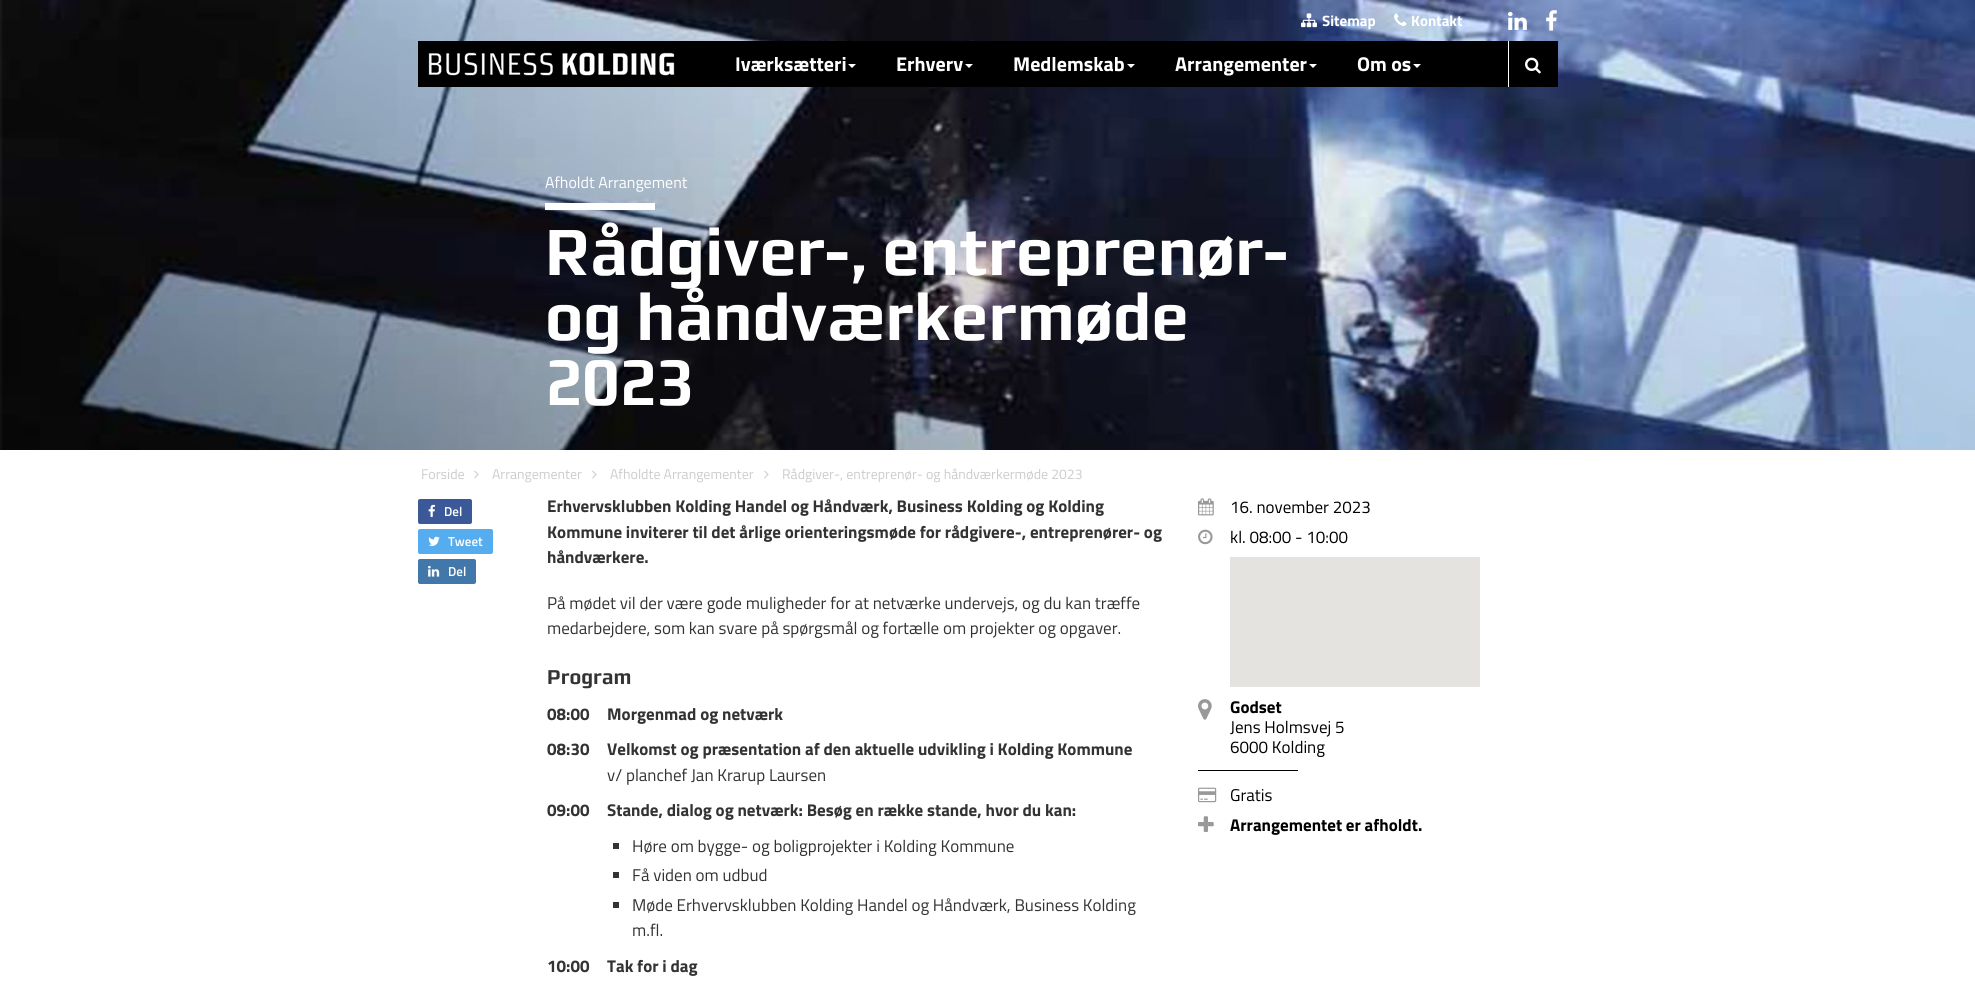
#include <cairo.h>
#include <math.h>
#include <stddef.h>

static cairo_t *ctx;

static void use_color(int r, int g, int b) {
    cairo_set_source_rgb(ctx, r / 255.0, g / 255.0, b / 255.0);
}

static void round_rect(double x, double y, double w, double h, double r) {
    cairo_new_sub_path(ctx);
    cairo_arc(ctx, x + w - r, y + h - r, r, 0, M_PI / 2);
    cairo_arc(ctx, x + r, y + h - r, r, M_PI / 2, M_PI);
    cairo_arc(ctx, x + r, y + r, r, M_PI, 1.5 * M_PI);
    cairo_arc(ctx, x + w - r, y + r, r, 1.5 * M_PI, 2 * M_PI);
    cairo_close_path(ctx);
}

static void picture(const char *path, double x, double y, double w, double h) {
    cairo_surface_t *image = cairo_image_surface_create_from_png(path);
    cairo_save(ctx);
    cairo_set_source_surface(ctx, image, x, y);
    cairo_rectangle(ctx, x, y, w, h);
    cairo_fill(ctx);
    cairo_restore(ctx);
    cairo_surface_destroy(image);
}

int main(void) {
    cairo_surface_t *surface = cairo_image_surface_create(CAIRO_FORMAT_RGB24, 1975, 981);
    ctx = cairo_create(surface);
    cairo_font_options_t *options = cairo_font_options_create();
    cairo_font_options_set_hint_metrics(options, CAIRO_HINT_METRICS_OFF);
    cairo_font_options_set_hint_style(options, CAIRO_HINT_STYLE_NONE);
    cairo_set_font_options(ctx, options);
    cairo_set_miter_limit(ctx, 4);
    use_color(255, 255, 255);
    cairo_paint(ctx);
    picture("img8.png", 0, 0, 1975, 450);
    picture("img7.png", 0, 0, 1975, 450);
    picture("img1.png", 1301, 13, 16, 15);
    cairo_select_font_face(ctx, "Titillium Web", CAIRO_FONT_SLANT_NORMAL, CAIRO_FONT_WEIGHT_BOLD);
    cairo_set_font_size(ctx, 15);
    use_color(255, 255, 255);
    cairo_move_to(ctx, 1322, 26);
    cairo_show_text(ctx, "Sitemap");
    picture("img2.png", 1394, 13, 13, 13);
    cairo_move_to(ctx, 1411, 26);
    cairo_show_text(ctx, "Kontakt");
    picture("img3.png", 1508, 12, 19, 18);
    picture("img4.png", 1546, 10, 11, 21);
    use_color(0, 0, 0);
    cairo_rectangle(ctx, 418, 41, 1140, 46);
    cairo_fill(ctx);
    picture("img5.png", 428, 52, 247, 24);
    cairo_set_font_size(ctx, 20);
    use_color(255, 255, 255);
    cairo_move_to(ctx, 735, 71);
    cairo_show_text(ctx, "Iværksætteri");
    cairo_new_path(ctx);
    cairo_move_to(ctx, 848, 64);
    cairo_line_to(ctx, 856, 64);
    cairo_line_to(ctx, 852, 68);
    cairo_close_path(ctx);
    cairo_fill(ctx);
    cairo_move_to(ctx, 896, 71);
    cairo_show_text(ctx, "Erhverv");
    cairo_new_path(ctx);
    cairo_move_to(ctx, 965, 64);
    cairo_line_to(ctx, 973, 64);
    cairo_line_to(ctx, 969, 68);
    cairo_close_path(ctx);
    cairo_fill(ctx);
    cairo_move_to(ctx, 1013, 71);
    cairo_show_text(ctx, "Medlemskab");
    cairo_new_path(ctx);
    cairo_move_to(ctx, 1127, 64);
    cairo_line_to(ctx, 1135, 64);
    cairo_line_to(ctx, 1131, 68);
    cairo_close_path(ctx);
    cairo_fill(ctx);
    cairo_move_to(ctx, 1175, 71);
    cairo_show_text(ctx, "Arrangementer");
    cairo_new_path(ctx);
    cairo_move_to(ctx, 1309, 64);
    cairo_line_to(ctx, 1317, 64);
    cairo_line_to(ctx, 1313, 68);
    cairo_close_path(ctx);
    cairo_fill(ctx);
    cairo_move_to(ctx, 1357, 71);
    cairo_show_text(ctx, "Om os");
    cairo_new_path(ctx);
    cairo_move_to(ctx, 1413, 64);
    cairo_line_to(ctx, 1421, 64);
    cairo_line_to(ctx, 1417, 68);
    cairo_close_path(ctx);
    cairo_fill(ctx);
    cairo_rectangle(ctx, 1508, 41, 1, 46);
    cairo_fill(ctx);
    picture("img6.png", 1525, 57, 16, 17);
    cairo_select_font_face(ctx, "Titillium Web", CAIRO_FONT_SLANT_NORMAL, CAIRO_FONT_WEIGHT_NORMAL);
    cairo_set_font_size(ctx, 16);
    cairo_move_to(ctx, 545, 188);
    cairo_show_text(ctx, "Afholdt Arrangement");
    cairo_rectangle(ctx, 545, 203, 110, 7);
    cairo_fill(ctx);
    cairo_select_font_face(ctx, "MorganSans", CAIRO_FONT_SLANT_NORMAL, CAIRO_FONT_WEIGHT_BOLD);
    cairo_set_font_size(ctx, 65);
    cairo_move_to(ctx, 545, 275);
    cairo_show_text(ctx, "Rådgiver-, entreprenør-");
    cairo_move_to(ctx, 545, 340);
    cairo_show_text(ctx, "og håndværkermøde");
    cairo_move_to(ctx, 545, 405);
    cairo_show_text(ctx, "2023");
    cairo_select_font_face(ctx, "Titillium Web", CAIRO_FONT_SLANT_NORMAL, CAIRO_FONT_WEIGHT_NORMAL);
    cairo_set_font_size(ctx, 14);
    use_color(204, 204, 204);
    cairo_move_to(ctx, 421, 479);
    cairo_show_text(ctx, "Forside");
    picture("img9.png", 474, 470, 5, 9);
    cairo_move_to(ctx, 492, 479);
    cairo_show_text(ctx, "Arrangementer");
    picture("img9.png", 592, 470, 5, 9);
    cairo_move_to(ctx, 610, 479);
    cairo_show_text(ctx, "Afholdte Arrangementer");
    picture("img9.png", 764, 470, 5, 9);
    cairo_move_to(ctx, 782, 479);
    cairo_show_text(ctx, "Rådgiver-, entreprenør- og håndværkermøde 2023");
    use_color(59, 89, 152);
    round_rect(418, 499, 54, 25, 2);
    cairo_fill(ctx);
    picture("img10.png", 428, 504, 7, 13);
    cairo_select_font_face(ctx, "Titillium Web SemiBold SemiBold", CAIRO_FONT_SLANT_NORMAL, CAIRO_FONT_WEIGHT_NORMAL);
    cairo_set_font_size(ctx, 13);
    use_color(255, 255, 255);
    cairo_move_to(ctx, 444, 516);
    cairo_show_text(ctx, "Del");
    use_color(85, 172, 238);
    round_rect(418, 529, 75, 25, 2);
    cairo_fill(ctx);
    picture("img11.png", 428, 536, 12, 10);
    use_color(255, 255, 255);
    cairo_move_to(ctx, 448, 546);
    cairo_show_text(ctx, "Tweet");
    use_color(65, 120, 169);
    round_rect(418, 559, 58, 25, 2);
    cairo_fill(ctx);
    picture("img12.png", 428, 565, 12, 12);
    use_color(255, 255, 255);
    cairo_move_to(ctx, 448, 576);
    cairo_show_text(ctx, "Del");
    cairo_select_font_face(ctx, "Titillium Web", CAIRO_FONT_SLANT_NORMAL, CAIRO_FONT_WEIGHT_BOLD);
    cairo_set_font_size(ctx, 17);
    use_color(51, 51, 51);
    cairo_move_to(ctx, 547, 512);
    cairo_show_text(ctx, "Erhvervsklubben Kolding Handel og Håndværk, Business Kolding og Kolding");
    cairo_move_to(ctx, 547, 538);
    cairo_show_text(ctx, "Kommune inviterer til det årlige orienteringsmøde for rådgivere-, entreprenører- og");
    cairo_move_to(ctx, 547, 563);
    cairo_show_text(ctx, "håndværkere.");
    cairo_select_font_face(ctx, "Titillium Web", CAIRO_FONT_SLANT_NORMAL, CAIRO_FONT_WEIGHT_NORMAL);
    cairo_move_to(ctx, 547, 609);
    cairo_show_text(ctx, "På mødet vil der være gode muligheder for at netværke undervejs, og du kan træffe");
    cairo_move_to(ctx, 547, 634);
    cairo_show_text(ctx, "medarbejdere, som kan svare på spørgsmål og fortælle om projekter og opgaver.");
    cairo_select_font_face(ctx, "MorganSans", CAIRO_FONT_SLANT_NORMAL, CAIRO_FONT_WEIGHT_BOLD);
    cairo_set_font_size(ctx, 20);
    cairo_move_to(ctx, 547, 684);
    cairo_show_text(ctx, "Program");
    cairo_select_font_face(ctx, "Titillium Web", CAIRO_FONT_SLANT_NORMAL, CAIRO_FONT_WEIGHT_BOLD);
    cairo_set_font_size(ctx, 17);
    cairo_move_to(ctx, 547, 720);
    cairo_show_text(ctx, "08:00");
    cairo_move_to(ctx, 607, 720);
    cairo_show_text(ctx, "Morgenmad og netværk");
    cairo_move_to(ctx, 547, 755);
    cairo_show_text(ctx, "08:30");
    cairo_move_to(ctx, 607, 755);
    cairo_show_text(ctx, "Velkomst og præsentation af den aktuelle udvikling i Kolding Kommune");
    cairo_select_font_face(ctx, "Titillium Web", CAIRO_FONT_SLANT_NORMAL, CAIRO_FONT_WEIGHT_NORMAL);
    cairo_move_to(ctx, 607, 781);
    cairo_show_text(ctx, "v/ planchef Jan Krarup Laursen");
    cairo_select_font_face(ctx, "Titillium Web", CAIRO_FONT_SLANT_NORMAL, CAIRO_FONT_WEIGHT_BOLD);
    cairo_move_to(ctx, 547, 816);
    cairo_show_text(ctx, "09:00");
    cairo_move_to(ctx, 607, 816);
    cairo_show_text(ctx, "Stande, dialog og netværk: Besøg en række stande, hvor du kan:");
    cairo_rectangle(ctx, 613, 843, 6, 6);
    cairo_fill(ctx);
    cairo_select_font_face(ctx, "Titillium Web", CAIRO_FONT_SLANT_NORMAL, CAIRO_FONT_WEIGHT_NORMAL);
    cairo_move_to(ctx, 632, 852);
    cairo_show_text(ctx, "Høre om bygge- og boligprojekter i Kolding Kommune");
    cairo_rectangle(ctx, 613, 872, 6, 6);
    cairo_fill(ctx);
    cairo_move_to(ctx, 632, 881);
    cairo_show_text(ctx, "Få viden om udbud");
    cairo_rectangle(ctx, 613, 902, 6, 6);
    cairo_fill(ctx);
    cairo_move_to(ctx, 632, 911);
    cairo_show_text(ctx, "Møde Erhvervsklubben Kolding Handel og Håndværk, Business Kolding");
    cairo_move_to(ctx, 632, 936);
    cairo_show_text(ctx, "m.fl.");
    cairo_select_font_face(ctx, "Titillium Web", CAIRO_FONT_SLANT_NORMAL, CAIRO_FONT_WEIGHT_BOLD);
    cairo_move_to(ctx, 547, 972);
    cairo_show_text(ctx, "10:00");
    cairo_move_to(ctx, 607, 972);
    cairo_show_text(ctx, "Tak for i dag");
    picture("img13.png", 1198, 498, 16, 18);
    cairo_select_font_face(ctx, "Titillium Web", CAIRO_FONT_SLANT_NORMAL, CAIRO_FONT_WEIGHT_NORMAL);
    use_color(0, 0, 0);
    cairo_move_to(ctx, 1230, 513);
    cairo_show_text(ctx, "16. november 2023");
    picture("img14.png", 1198, 529, 15, 16);
    cairo_move_to(ctx, 1230, 543);
    cairo_show_text(ctx, "kl. 08:00 - 10:00");
    use_color(229, 227, 223);
    cairo_rectangle(ctx, 1230, 557, 250, 130);
    cairo_fill(ctx);
    picture("img15.png", 1198, 699, 14, 21);
    cairo_select_font_face(ctx, "Titillium Web", CAIRO_FONT_SLANT_NORMAL, CAIRO_FONT_WEIGHT_BOLD);
    use_color(0, 0, 0);
    cairo_move_to(ctx, 1230, 713);
    cairo_show_text(ctx, "Godset");
    cairo_select_font_face(ctx, "Titillium Web", CAIRO_FONT_SLANT_NORMAL, CAIRO_FONT_WEIGHT_NORMAL);
    cairo_move_to(ctx, 1230, 733);
    cairo_show_text(ctx, "Jens Holmsvej 5");
    cairo_move_to(ctx, 1230, 753);
    cairo_show_text(ctx, "6000 Kolding");
    cairo_rectangle(ctx, 1198, 770, 100, 1);
    cairo_fill(ctx);
    picture("img16.png", 1198, 787, 19, 16);
    cairo_move_to(ctx, 1230, 801);
    cairo_show_text(ctx, "Gratis");
    picture("img17.png", 1198, 816, 16, 16);
    cairo_select_font_face(ctx, "Titillium Web", CAIRO_FONT_SLANT_NORMAL, CAIRO_FONT_WEIGHT_BOLD);
    cairo_move_to(ctx, 1230, 831);
    cairo_show_text(ctx, "Arrangementet er afholdt.");
    cairo_surface_write_to_png(surface, "result.png");
    cairo_font_options_destroy(options);
    cairo_destroy(ctx);
    cairo_surface_destroy(surface);
    return 0;
}
